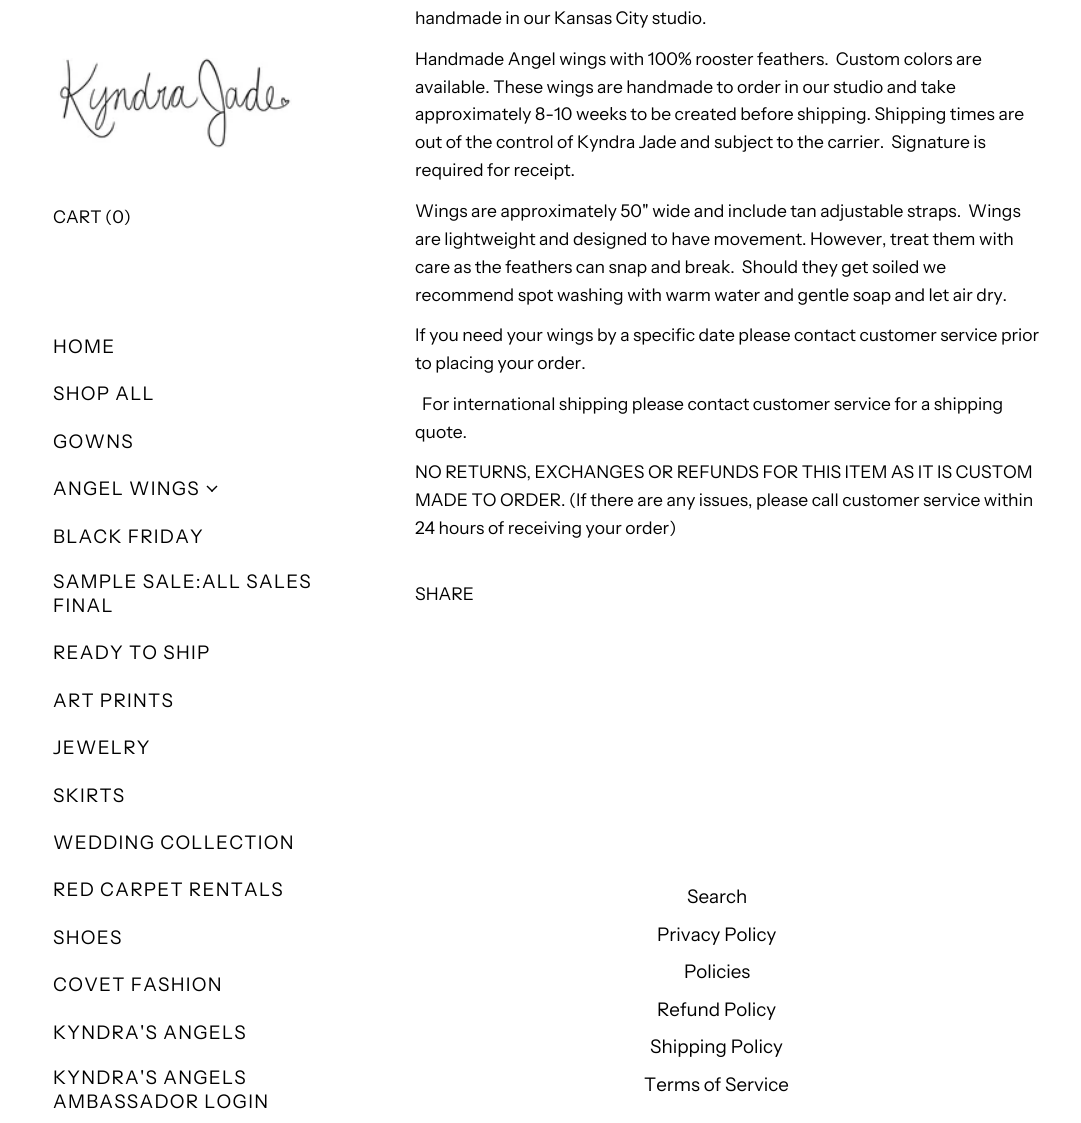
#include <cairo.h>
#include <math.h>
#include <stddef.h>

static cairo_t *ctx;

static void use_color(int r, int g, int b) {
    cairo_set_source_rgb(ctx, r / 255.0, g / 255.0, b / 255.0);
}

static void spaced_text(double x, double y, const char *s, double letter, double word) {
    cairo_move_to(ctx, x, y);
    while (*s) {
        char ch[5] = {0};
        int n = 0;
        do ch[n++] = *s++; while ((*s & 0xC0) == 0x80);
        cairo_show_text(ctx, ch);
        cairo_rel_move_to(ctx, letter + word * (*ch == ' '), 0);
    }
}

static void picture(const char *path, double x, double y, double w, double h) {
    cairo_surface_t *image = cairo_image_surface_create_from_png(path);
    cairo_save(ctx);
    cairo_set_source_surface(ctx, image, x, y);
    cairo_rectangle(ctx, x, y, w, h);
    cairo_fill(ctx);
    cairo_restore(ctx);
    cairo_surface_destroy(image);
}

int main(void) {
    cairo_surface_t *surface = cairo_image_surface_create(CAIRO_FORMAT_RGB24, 1081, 1123);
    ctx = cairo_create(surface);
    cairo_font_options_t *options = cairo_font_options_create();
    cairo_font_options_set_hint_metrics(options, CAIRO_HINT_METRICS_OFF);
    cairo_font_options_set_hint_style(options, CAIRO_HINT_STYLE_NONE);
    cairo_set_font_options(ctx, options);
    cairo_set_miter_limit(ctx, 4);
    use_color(255, 255, 255);
    cairo_paint(ctx);
    picture("img1.png", 58, 58, 234, 90);
    cairo_select_font_face(ctx, "Instrument Sans", CAIRO_FONT_SLANT_NORMAL, CAIRO_FONT_WEIGHT_NORMAL);
    cairo_set_font_size(ctx, 17.5);
    use_color(0, 0, 0);
    cairo_move_to(ctx, 53, 223);
    cairo_show_text(ctx, "CART (0)");
    cairo_set_font_size(ctx, 18.75);
    spaced_text(53, 353, "HOME", 1.25, 0);
    spaced_text(53, 400, "SHOP ALL", 1.25, 0);
    spaced_text(53, 448, "GOWNS", 1.25, 0);
    spaced_text(53, 495, "ANGEL WINGS", 1.25, 0);
    cairo_new_path(ctx);
    cairo_move_to(ctx, 217.5, 486.5);
    cairo_line_to(ctx, 212, 492);
    cairo_line_to(ctx, 211, 491);
    cairo_line_to(ctx, 216.5, 485.5);
    cairo_close_path(ctx);
    cairo_fill(ctx);
    cairo_new_path(ctx);
    cairo_move_to(ctx, 213, 491);
    cairo_line_to(ctx, 212, 492);
    cairo_line_to(ctx, 206.5, 486.5);
    cairo_line_to(ctx, 207.5, 485.5);
    cairo_close_path(ctx);
    cairo_fill(ctx);
    spaced_text(53, 543, "BLACK FRIDAY", 1.25, 0);
    spaced_text(53, 588, "SAMPLE SALE:ALL SALES", 1.25, 0);
    spaced_text(53, 612, "FINAL", 1.25, 0);
    spaced_text(53, 659, "READY TO SHIP", 1.25, 0);
    spaced_text(53, 707, "ART PRINTS", 1.25, 0);
    spaced_text(53, 754, "JEWELRY", 1.25, 0);
    spaced_text(53, 802, "SKIRTS", 1.25, 0);
    spaced_text(53, 849, "WEDDING COLLECTION", 1.25, 0);
    spaced_text(53, 896, "RED CARPET RENTALS", 1.25, 0);
    spaced_text(53, 944, "SHOES", 1.25, 0);
    spaced_text(53, 991, "COVET FASHION", 1.25, 0);
    spaced_text(53, 1039, "KYNDRA'S ANGELS", 1.25, 0);
    spaced_text(53, 1084, "KYNDRA'S ANGELS", 1.25, 0);
    spaced_text(53, 1108, "AMBASSADOR LOGIN", 1.25, 0);
    cairo_set_font_size(ctx, 17.5);
    cairo_move_to(ctx, 415, 24);
    cairo_show_text(ctx, "handmade in our Kansas City studio.");
    cairo_move_to(ctx, 415, 65);
    cairo_show_text(ctx, "Handmade Angel wings with 100% rooster feathers.  Custom colors are");
    cairo_move_to(ctx, 415, 93);
    cairo_show_text(ctx, "available. These wings are handmade to order in our studio and take");
    cairo_move_to(ctx, 415, 120);
    cairo_show_text(ctx, "approximately 8-10 weeks to be created before shipping. Shipping times are");
    cairo_move_to(ctx, 415, 148);
    cairo_show_text(ctx, "out of the control of Kyndra Jade and subject to the carrier.  Signature is");
    cairo_move_to(ctx, 415, 176);
    cairo_show_text(ctx, "required for receipt.");
    cairo_move_to(ctx, 415, 217);
    cairo_show_text(ctx, "Wings are approximately 50\" wide and include tan adjustable straps.  Wings");
    cairo_move_to(ctx, 415, 245);
    cairo_show_text(ctx, "are lightweight and designed to have movement. However, treat them with");
    cairo_move_to(ctx, 415, 273);
    cairo_show_text(ctx, "care as the feathers can snap and break.  Should they get soiled we");
    cairo_move_to(ctx, 415, 301);
    cairo_show_text(ctx, "recommend spot washing with warm water and gentle soap and let air dry.");
    cairo_move_to(ctx, 415, 341);
    cairo_show_text(ctx, "If you need your wings by a specific date please contact customer service prior");
    cairo_move_to(ctx, 415, 369);
    cairo_show_text(ctx, "to placing your order.");
    cairo_move_to(ctx, 422, 410);
    cairo_show_text(ctx, "For international shipping please contact customer service for a shipping");
    cairo_move_to(ctx, 415, 438);
    cairo_show_text(ctx, "quote.");
    cairo_move_to(ctx, 415, 478);
    cairo_show_text(ctx, "NO RETURNS, EXCHANGES OR REFUNDS FOR THIS ITEM AS IT IS CUSTOM");
    cairo_move_to(ctx, 415, 506);
    cairo_show_text(ctx, "MADE TO ORDER. (If there are any issues, please call customer service within");
    cairo_move_to(ctx, 415, 534);
    cairo_show_text(ctx, "24 hours of receiving your order)");
    cairo_move_to(ctx, 415, 600);
    cairo_show_text(ctx, "SHARE");
    cairo_set_font_size(ctx, 18.75);
    cairo_move_to(ctx, 687, 903);
    cairo_show_text(ctx, "Search");
    cairo_move_to(ctx, 657, 941);
    cairo_show_text(ctx, "Privacy Policy");
    cairo_move_to(ctx, 684, 978);
    cairo_show_text(ctx, "Policies");
    cairo_move_to(ctx, 657, 1016);
    cairo_show_text(ctx, "Refund Policy");
    cairo_move_to(ctx, 650, 1053);
    cairo_show_text(ctx, "Shipping Policy");
    cairo_move_to(ctx, 644, 1091);
    cairo_show_text(ctx, "Terms of Service");
    cairo_surface_write_to_png(surface, "result.png");
    cairo_font_options_destroy(options);
    cairo_destroy(ctx);
    cairo_surface_destroy(surface);
    return 0;
}
